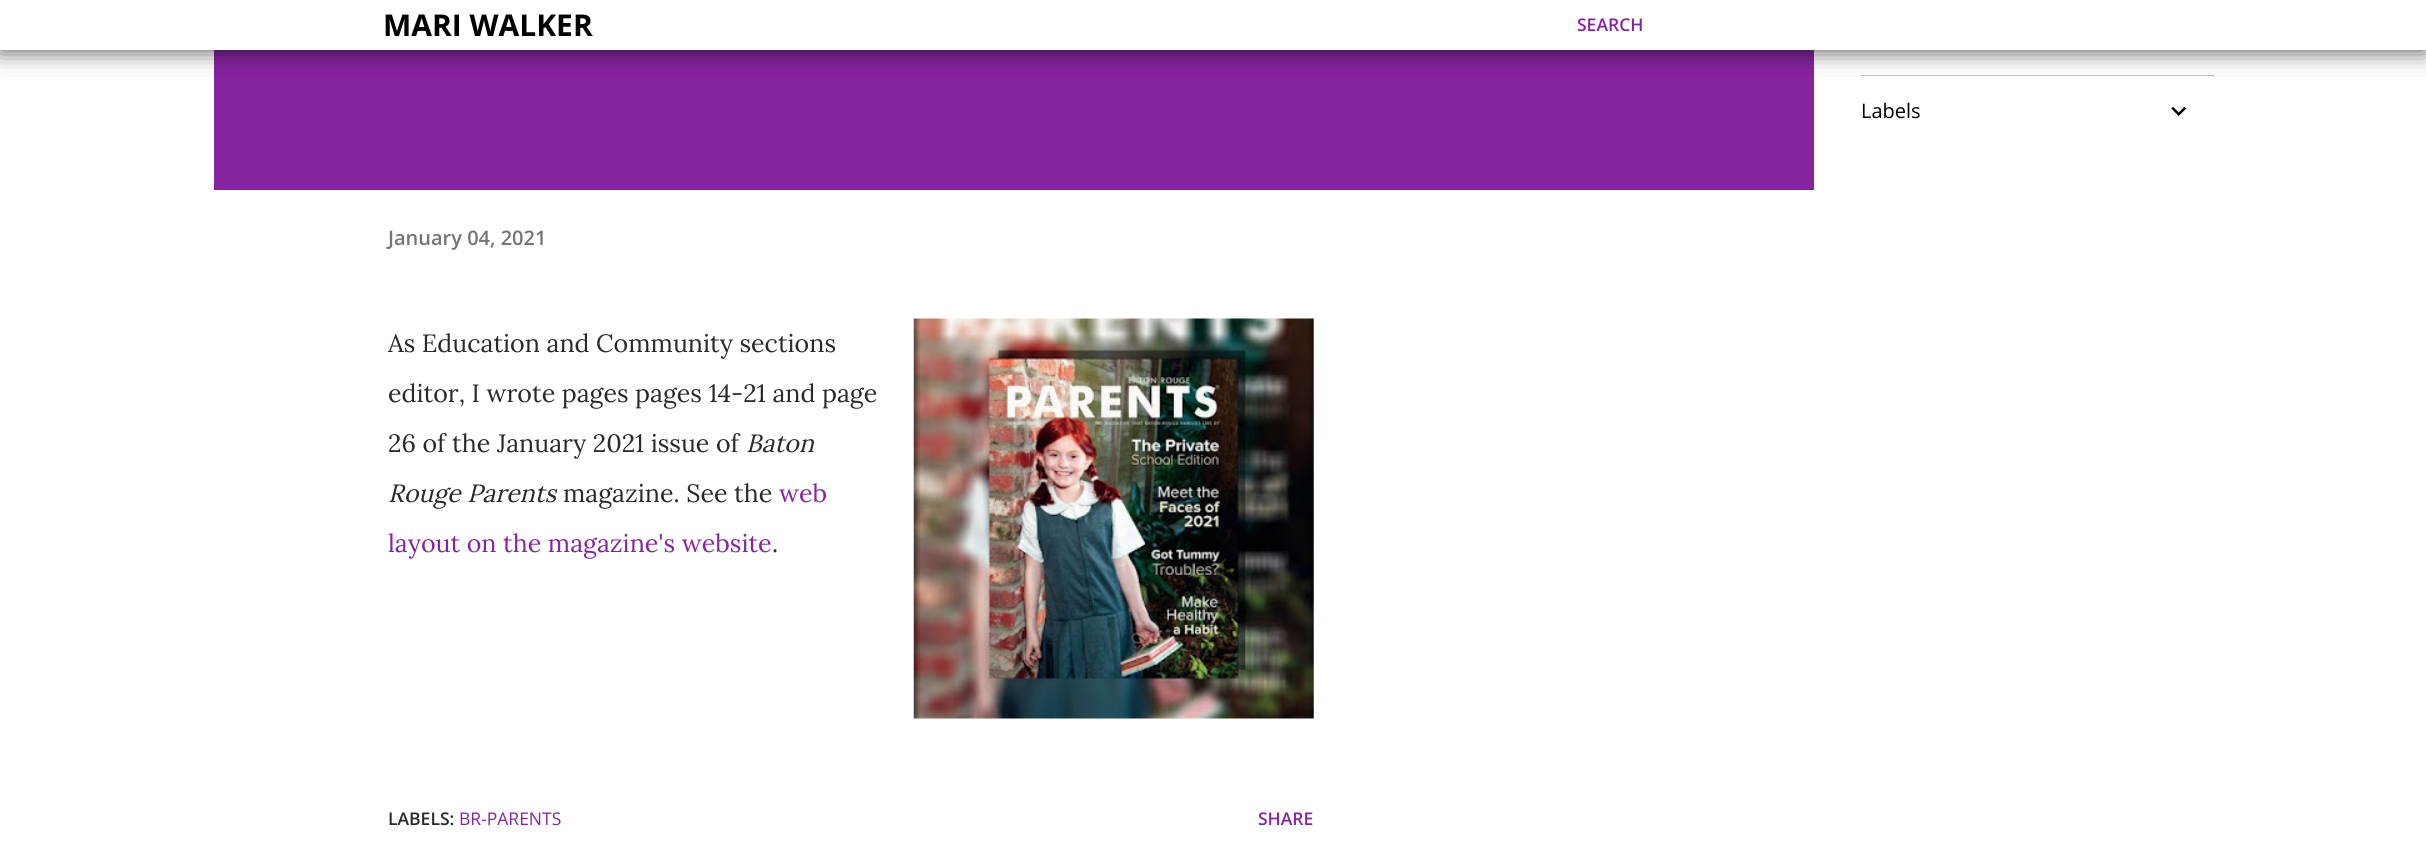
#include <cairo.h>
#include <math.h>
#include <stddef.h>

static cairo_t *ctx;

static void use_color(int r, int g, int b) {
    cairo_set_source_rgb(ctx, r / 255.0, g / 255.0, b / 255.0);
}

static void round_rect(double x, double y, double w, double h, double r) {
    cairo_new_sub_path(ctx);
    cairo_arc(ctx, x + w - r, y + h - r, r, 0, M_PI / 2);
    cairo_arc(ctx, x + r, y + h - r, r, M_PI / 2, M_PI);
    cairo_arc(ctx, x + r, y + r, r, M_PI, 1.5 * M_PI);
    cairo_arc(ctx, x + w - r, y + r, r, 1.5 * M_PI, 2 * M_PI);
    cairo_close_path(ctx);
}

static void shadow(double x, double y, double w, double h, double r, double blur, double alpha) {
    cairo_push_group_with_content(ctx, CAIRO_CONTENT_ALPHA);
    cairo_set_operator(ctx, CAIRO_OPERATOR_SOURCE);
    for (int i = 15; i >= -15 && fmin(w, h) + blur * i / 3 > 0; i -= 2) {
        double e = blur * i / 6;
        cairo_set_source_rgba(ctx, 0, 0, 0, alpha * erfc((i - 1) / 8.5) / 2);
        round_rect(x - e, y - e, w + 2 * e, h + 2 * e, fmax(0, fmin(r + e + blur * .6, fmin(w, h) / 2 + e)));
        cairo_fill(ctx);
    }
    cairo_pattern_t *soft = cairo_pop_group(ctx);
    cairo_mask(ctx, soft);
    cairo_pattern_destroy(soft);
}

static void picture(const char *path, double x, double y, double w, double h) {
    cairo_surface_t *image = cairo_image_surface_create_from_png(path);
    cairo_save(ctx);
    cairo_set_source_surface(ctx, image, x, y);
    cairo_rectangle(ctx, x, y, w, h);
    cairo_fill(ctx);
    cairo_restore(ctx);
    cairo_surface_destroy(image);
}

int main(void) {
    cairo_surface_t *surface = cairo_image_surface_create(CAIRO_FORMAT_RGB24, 2426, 849);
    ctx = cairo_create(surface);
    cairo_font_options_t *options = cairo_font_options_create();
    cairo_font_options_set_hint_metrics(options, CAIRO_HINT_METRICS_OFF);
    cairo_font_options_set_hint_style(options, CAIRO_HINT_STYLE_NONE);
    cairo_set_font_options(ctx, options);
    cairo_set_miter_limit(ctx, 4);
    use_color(255, 255, 255);
    cairo_paint(ctx);
    use_color(189, 189, 189);
    cairo_rectangle(ctx, 1861, 75, 353, 1);
    cairo_fill(ctx);
    use_color(134, 36, 160);
    cairo_rectangle(ctx, 214, 50, 1600, 140);
    cairo_fill(ctx);
    use_color(0, 0, 0);
    shadow(0, 0, 2426, 50, 0, 12.5, 0.7);
    use_color(255, 255, 255);
    cairo_rectangle(ctx, 0, 0, 2426, 50);
    cairo_fill(ctx);
    cairo_select_font_face(ctx, "Open Sans", CAIRO_FONT_SLANT_NORMAL, CAIRO_FONT_WEIGHT_BOLD);
    cairo_set_font_size(ctx, 30);
    use_color(0, 0, 0);
    cairo_move_to(ctx, 383, 36);
    cairo_show_text(ctx, "MARI WALKER");
    cairo_select_font_face(ctx, "Open Sans SemiBold", CAIRO_FONT_SLANT_NORMAL, CAIRO_FONT_WEIGHT_NORMAL);
    cairo_set_font_size(ctx, 17.5);
    use_color(134, 36, 160);
    cairo_move_to(ctx, 1577, 31);
    cairo_show_text(ctx, "SEARCH");
    cairo_select_font_face(ctx, "Open Sans", CAIRO_FONT_SLANT_NORMAL, CAIRO_FONT_WEIGHT_NORMAL);
    cairo_set_font_size(ctx, 20);
    use_color(0, 0, 0);
    cairo_move_to(ctx, 1861, 118);
    cairo_show_text(ctx, "Labels");
    picture("img1.png", 2171, 106, 16, 10);
    cairo_select_font_face(ctx, "Open Sans SemiBold", CAIRO_FONT_SLANT_NORMAL, CAIRO_FONT_WEIGHT_NORMAL);
    use_color(117, 117, 117);
    cairo_move_to(ctx, 388, 245);
    cairo_show_text(ctx, "January 04, 2021");
    cairo_select_font_face(ctx, "Lora", CAIRO_FONT_SLANT_NORMAL, CAIRO_FONT_WEIGHT_NORMAL);
    cairo_set_font_size(ctx, 25);
    use_color(41, 41, 41);
    cairo_move_to(ctx, 388, 352);
    cairo_show_text(ctx, "As Education and Community sections");
    picture("img2.png", 913, 318, 401, 401);
    cairo_move_to(ctx, 388, 402);
    cairo_show_text(ctx, "editor, I wrote pages pages 14-21 and page");
    cairo_move_to(ctx, 388, 452);
    cairo_show_text(ctx, "26 of the January 2021 issue of");
    cairo_select_font_face(ctx, "Lora", CAIRO_FONT_SLANT_ITALIC, CAIRO_FONT_WEIGHT_NORMAL);
    cairo_move_to(ctx, 746, 452);
    cairo_show_text(ctx, "Baton");
    cairo_move_to(ctx, 388, 502);
    cairo_show_text(ctx, "Rouge Parents");
    cairo_select_font_face(ctx, "Lora", CAIRO_FONT_SLANT_NORMAL, CAIRO_FONT_WEIGHT_NORMAL);
    cairo_move_to(ctx, 563, 502);
    cairo_show_text(ctx, "magazine. See the");
    use_color(134, 36, 160);
    cairo_move_to(ctx, 779, 502);
    cairo_show_text(ctx, "web");
    cairo_move_to(ctx, 388, 552);
    cairo_show_text(ctx, "layout on the magazine's website");
    use_color(41, 41, 41);
    cairo_move_to(ctx, 772, 552);
    cairo_show_text(ctx, ".");
    cairo_select_font_face(ctx, "Open Sans SemiBold", CAIRO_FONT_SLANT_NORMAL, CAIRO_FONT_WEIGHT_NORMAL);
    cairo_set_font_size(ctx, 17.5);
    cairo_move_to(ctx, 388, 825);
    cairo_show_text(ctx, "LABELS:");
    cairo_select_font_face(ctx, "Open Sans", CAIRO_FONT_SLANT_NORMAL, CAIRO_FONT_WEIGHT_NORMAL);
    use_color(134, 36, 160);
    cairo_move_to(ctx, 459, 825);
    cairo_show_text(ctx, "BR-PARENTS");
    cairo_select_font_face(ctx, "Open Sans SemiBold", CAIRO_FONT_SLANT_NORMAL, CAIRO_FONT_WEIGHT_NORMAL);
    cairo_move_to(ctx, 1258, 825);
    cairo_show_text(ctx, "SHARE");
    cairo_surface_write_to_png(surface, "result.png");
    cairo_font_options_destroy(options);
    cairo_destroy(ctx);
    cairo_surface_destroy(surface);
    return 0;
}
